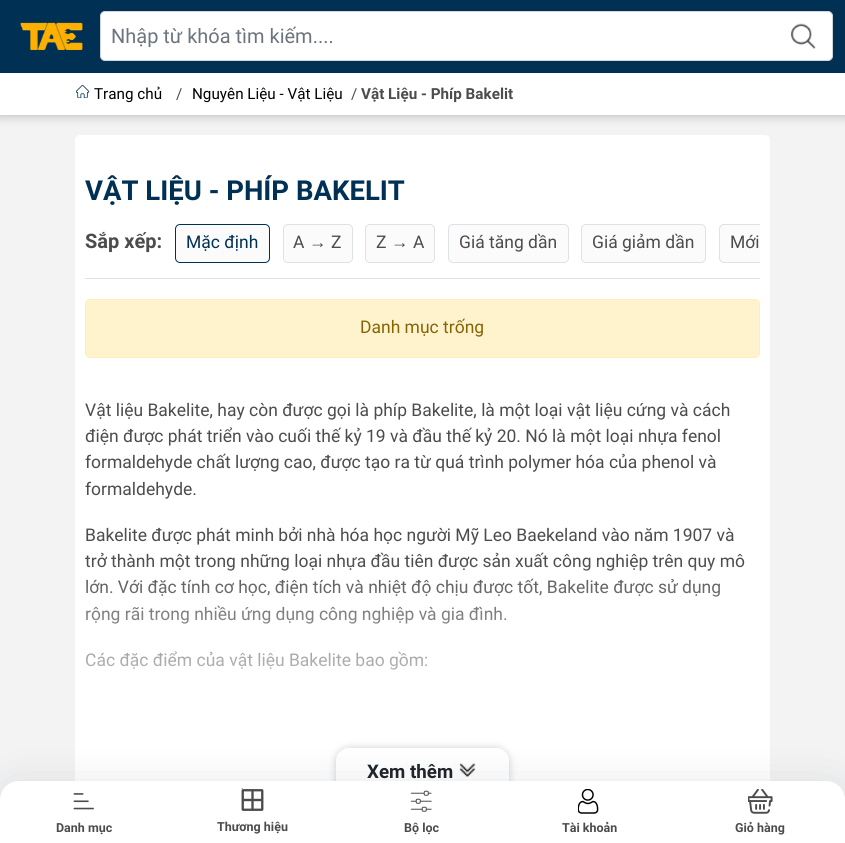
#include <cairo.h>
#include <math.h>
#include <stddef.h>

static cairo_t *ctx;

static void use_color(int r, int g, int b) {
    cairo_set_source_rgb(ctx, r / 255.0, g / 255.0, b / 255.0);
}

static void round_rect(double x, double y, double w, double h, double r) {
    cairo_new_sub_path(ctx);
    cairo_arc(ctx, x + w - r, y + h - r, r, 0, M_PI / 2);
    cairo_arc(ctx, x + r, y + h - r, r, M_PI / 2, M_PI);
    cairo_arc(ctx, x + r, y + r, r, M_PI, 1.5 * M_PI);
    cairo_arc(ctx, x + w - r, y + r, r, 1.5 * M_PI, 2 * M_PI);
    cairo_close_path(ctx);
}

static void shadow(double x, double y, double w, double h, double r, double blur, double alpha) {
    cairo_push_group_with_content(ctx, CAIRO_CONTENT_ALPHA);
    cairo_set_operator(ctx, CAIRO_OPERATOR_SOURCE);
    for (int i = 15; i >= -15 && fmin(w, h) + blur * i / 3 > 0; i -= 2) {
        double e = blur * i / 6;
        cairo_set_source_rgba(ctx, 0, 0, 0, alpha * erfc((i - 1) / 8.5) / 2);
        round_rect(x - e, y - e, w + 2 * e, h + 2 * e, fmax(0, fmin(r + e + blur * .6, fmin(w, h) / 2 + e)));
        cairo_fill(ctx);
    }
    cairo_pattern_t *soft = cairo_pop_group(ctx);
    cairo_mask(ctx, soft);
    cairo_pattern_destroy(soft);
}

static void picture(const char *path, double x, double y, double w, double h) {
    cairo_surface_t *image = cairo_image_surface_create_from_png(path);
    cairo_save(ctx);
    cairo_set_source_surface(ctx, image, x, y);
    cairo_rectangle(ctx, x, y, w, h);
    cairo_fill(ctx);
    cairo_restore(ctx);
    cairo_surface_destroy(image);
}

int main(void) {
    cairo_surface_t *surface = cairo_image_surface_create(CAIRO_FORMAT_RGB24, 845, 843);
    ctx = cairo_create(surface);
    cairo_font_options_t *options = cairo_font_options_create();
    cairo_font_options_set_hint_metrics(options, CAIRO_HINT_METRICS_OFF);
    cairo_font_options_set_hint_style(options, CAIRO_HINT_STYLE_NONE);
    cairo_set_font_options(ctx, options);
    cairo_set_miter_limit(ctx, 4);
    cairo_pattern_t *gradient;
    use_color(243, 243, 243);
    cairo_paint(ctx);
    use_color(60, 64, 67);
    shadow(-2, 73, 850, 47, 0, 4, 0.15);
    shadow(0, 74, 845, 42, 0, 1, 0.1);
    use_color(0, 49, 85);
    cairo_rectangle(ctx, 0, 0, 845, 73);
    cairo_fill(ctx);
    picture("img1.png", 20, 22, 63, 29);
    use_color(255, 255, 255);
    round_rect(100.5, 11.5, 732, 49, 4.5);
    cairo_fill_preserve(ctx);
    use_color(206, 212, 218);
    cairo_set_line_width(ctx, 1);
    cairo_stroke(ctx);
    cairo_select_font_face(ctx, "Roboto", CAIRO_FONT_SLANT_NORMAL, CAIRO_FONT_WEIGHT_NORMAL);
    cairo_set_font_size(ctx, 20);
    use_color(108, 117, 125);
    cairo_move_to(ctx, 111, 43);
    cairo_show_text(ctx, "Nhập từ khóa tìm kiếm....");
    picture("img2.png", 791, 23, 25, 26);
    use_color(255, 255, 255);
    cairo_rectangle(ctx, 0, 73, 845, 42);
    cairo_fill(ctx);
    picture("img3.png", 75, 85, 15, 13);
    cairo_set_font_size(ctx, 15.25);
    use_color(0, 0, 0);
    cairo_move_to(ctx, 94, 99);
    cairo_show_text(ctx, "Trang chủ");
    use_color(76, 76, 76);
    cairo_move_to(ctx, 176, 99);
    cairo_show_text(ctx, "/");
    use_color(0, 0, 0);
    cairo_move_to(ctx, 192, 99);
    cairo_show_text(ctx, "Nguyên Liệu - Vật Liệu");
    use_color(76, 76, 76);
    cairo_move_to(ctx, 351, 99);
    cairo_show_text(ctx, "/");
    cairo_select_font_face(ctx, "Roboto", CAIRO_FONT_SLANT_NORMAL, CAIRO_FONT_WEIGHT_BOLD);
    cairo_move_to(ctx, 361, 99);
    cairo_show_text(ctx, "Vật Liệu - Phíp Bakelit");
    use_color(255, 255, 255);
    round_rect(75, 135, 695, 703, 5);
    cairo_fill(ctx);
    cairo_set_font_size(ctx, 27.5);
    use_color(0, 49, 85);
    cairo_move_to(ctx, 85, 200);
    cairo_show_text(ctx, "VẬT LIỆU - PHÍP BAKELIT");
    use_color(222, 226, 230);
    cairo_rectangle(ctx, 85, 278, 675, 1);
    cairo_fill(ctx);
    cairo_set_font_size(ctx, 20);
    use_color(76, 76, 76);
    cairo_move_to(ctx, 85, 248);
    cairo_show_text(ctx, "Sắp xếp:");
    use_color(251, 251, 251);
    round_rect(175.5, 224.5, 94, 38, 4.5);
    cairo_fill_preserve(ctx);
    use_color(0, 49, 85);
    cairo_stroke(ctx);
    cairo_select_font_face(ctx, "Roboto", CAIRO_FONT_SLANT_NORMAL, CAIRO_FONT_WEIGHT_NORMAL);
    cairo_set_font_size(ctx, 17.5);
    cairo_move_to(ctx, 186, 248);
    cairo_show_text(ctx, "Mặc định");
    use_color(251, 251, 251);
    round_rect(283.5, 224.5, 69, 38, 4.5);
    cairo_fill_preserve(ctx);
    use_color(222, 226, 230);
    cairo_stroke(ctx);
    use_color(76, 76, 76);
    cairo_move_to(ctx, 293, 248);
    cairo_show_text(ctx, "A");
    cairo_select_font_face(ctx, "Liberation Sans", CAIRO_FONT_SLANT_NORMAL, CAIRO_FONT_WEIGHT_NORMAL);
    cairo_move_to(ctx, 309, 248);
    cairo_show_text(ctx, "→");
    cairo_select_font_face(ctx, "Roboto", CAIRO_FONT_SLANT_NORMAL, CAIRO_FONT_WEIGHT_NORMAL);
    cairo_move_to(ctx, 331, 248);
    cairo_show_text(ctx, "Z");
    use_color(251, 251, 251);
    round_rect(365.5, 224.5, 69, 38, 4.5);
    cairo_fill_preserve(ctx);
    use_color(222, 226, 230);
    cairo_stroke(ctx);
    use_color(76, 76, 76);
    cairo_move_to(ctx, 376, 248);
    cairo_show_text(ctx, "Z");
    cairo_select_font_face(ctx, "Liberation Sans", CAIRO_FONT_SLANT_NORMAL, CAIRO_FONT_WEIGHT_NORMAL);
    cairo_move_to(ctx, 391, 248);
    cairo_show_text(ctx, "→");
    cairo_select_font_face(ctx, "Roboto", CAIRO_FONT_SLANT_NORMAL, CAIRO_FONT_WEIGHT_NORMAL);
    cairo_move_to(ctx, 413, 248);
    cairo_show_text(ctx, "A");
    use_color(251, 251, 251);
    round_rect(448.5, 224.5, 120, 38, 4.5);
    cairo_fill_preserve(ctx);
    use_color(222, 226, 230);
    cairo_stroke(ctx);
    use_color(76, 76, 76);
    cairo_move_to(ctx, 459, 248);
    cairo_show_text(ctx, "Giá tăng dần");
    use_color(251, 251, 251);
    round_rect(581.5, 224.5, 124, 38, 4.5);
    cairo_fill_preserve(ctx);
    use_color(222, 226, 230);
    cairo_stroke(ctx);
    use_color(76, 76, 76);
    cairo_move_to(ctx, 592, 248);
    cairo_show_text(ctx, "Giá giảm dần");
    use_color(251, 251, 251);
    cairo_new_path(ctx);
    cairo_move_to(ctx, 724, 224);
    cairo_line_to(ctx, 760, 224);
    cairo_line_to(ctx, 760, 263);
    cairo_line_to(ctx, 724, 263);
    cairo_curve_to(ctx, 721, 263, 719, 261, 719, 258);
    cairo_line_to(ctx, 719, 229);
    cairo_curve_to(ctx, 719, 226, 721, 224, 724, 224);
    cairo_close_path(ctx);
    cairo_fill(ctx);
    cairo_save(ctx);
    cairo_rectangle(ctx, 85, 219, 675, 59);
    cairo_clip(ctx);
    round_rect(719.5, 224.5, 90, 38, 4.5);
    use_color(222, 226, 230);
    cairo_stroke(ctx);
    cairo_restore(ctx);
    use_color(76, 76, 76);
    cairo_move_to(ctx, 730, 248);
    cairo_show_text(ctx, "Mới");
    use_color(255, 243, 205);
    round_rect(85.5, 299.5, 674, 58, 4.5);
    cairo_fill_preserve(ctx);
    use_color(255, 238, 186);
    cairo_stroke(ctx);
    use_color(133, 100, 4);
    cairo_move_to(ctx, 360, 333);
    cairo_show_text(ctx, "Danh mục trống");
    use_color(76, 76, 76);
    cairo_move_to(ctx, 85, 416);
    cairo_show_text(ctx, "Vật liệu Bakelite, hay còn được gọi là phíp Bakelite, là một loại vật liệu cứng và cách");
    cairo_move_to(ctx, 85, 442);
    cairo_show_text(ctx, "điện được phát triển vào cuối thế kỷ 19 và đầu thế kỷ 20. Nó là một loại nhựa fenol");
    cairo_move_to(ctx, 85, 468);
    cairo_show_text(ctx, "formaldehyde chất lượng cao, được tạo ra từ quá trình polymer hóa của phenol và");
    cairo_move_to(ctx, 85, 495);
    cairo_show_text(ctx, "formaldehyde.");
    cairo_move_to(ctx, 85, 541);
    cairo_show_text(ctx, "Bakelite được phát minh bởi nhà hóa học người Mỹ Leo Baekeland vào năm 1907 và");
    cairo_move_to(ctx, 85, 567);
    cairo_show_text(ctx, "trở thành một trong những loại nhựa đầu tiên được sản xuất công nghiệp trên quy mô");
    cairo_move_to(ctx, 85, 593);
    cairo_show_text(ctx, "lớn. Với đặc tính cơ học, điện tích và nhiệt độ chịu được tốt, Bakelite được sử dụng");
    cairo_move_to(ctx, 85, 620);
    cairo_show_text(ctx, "rộng rãi trong nhiều ứng dụng công nghiệp và gia đình.");
    cairo_move_to(ctx, 85, 666);
    cairo_show_text(ctx, "Các đặc điểm của vật liệu Bakelite bao gồm:");
    gradient = cairo_pattern_create_linear(423, 560, 423, 748);
    cairo_pattern_add_color_stop_rgba(gradient, 0, 1, 1, 1, 0);
    cairo_pattern_add_color_stop_rgba(gradient, 1, 1, 1, 1, 1);
    cairo_set_source(ctx, gradient);
    cairo_pattern_destroy(gradient);
    cairo_rectangle(ctx, 86, 564, 658, 106);
    cairo_fill(ctx);
    cairo_save(ctx);
    cairo_set_fill_rule(ctx, CAIRO_FILL_RULE_EVEN_ODD);
    cairo_new_path(ctx);
    cairo_move_to(ctx, 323, 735);
    cairo_line_to(ctx, 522, 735);
    cairo_line_to(ctx, 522, 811);
    cairo_line_to(ctx, 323, 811);
    cairo_close_path(ctx);
    cairo_move_to(ctx, 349, 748);
    cairo_line_to(ctx, 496, 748);
    cairo_curve_to(ctx, 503, 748, 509, 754, 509, 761);
    cairo_line_to(ctx, 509, 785);
    cairo_curve_to(ctx, 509, 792, 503, 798, 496, 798);
    cairo_line_to(ctx, 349, 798);
    cairo_curve_to(ctx, 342, 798, 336, 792, 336, 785);
    cairo_line_to(ctx, 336, 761);
    cairo_curve_to(ctx, 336, 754, 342, 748, 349, 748);
    cairo_close_path(ctx);
    cairo_clip(ctx);
    use_color(60, 64, 67);
    shadow(336, 748, 173, 50, 13, 4, 0.25);
    cairo_restore(ctx);
    cairo_select_font_face(ctx, "Roboto", CAIRO_FONT_SLANT_NORMAL, CAIRO_FONT_WEIGHT_BOLD);
    cairo_set_font_size(ctx, 18.75);
    use_color(33, 37, 41);
    cairo_move_to(ctx, 367, 778);
    cairo_show_text(ctx, "Xem thêm");
    picture("img4.png", 459, 763, 17, 14);
    use_color(16, 42, 67);
    shadow(0, 790, 845, 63, 19, 22.5, 0.15);
    use_color(255, 255, 255);
    cairo_new_path(ctx);
    cairo_move_to(ctx, 19, 781);
    cairo_line_to(ctx, 826, 781);
    cairo_curve_to(ctx, 836.5, 781, 845, 789.5, 845, 800);
    cairo_line_to(ctx, 845, 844);
    cairo_line_to(ctx, 0, 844);
    cairo_line_to(ctx, 0, 800);
    cairo_curve_to(ctx, 0, 789.5, 8.5, 781, 19, 781);
    cairo_close_path(ctx);
    cairo_fill(ctx);
    picture("img5.png", 73, 793, 21, 17);
    cairo_set_font_size(ctx, 12.5);
    use_color(76, 76, 76);
    cairo_move_to(ctx, 56, 832);
    cairo_show_text(ctx, "Danh mục");
    picture("img6.png", 241, 788, 23, 23);
    cairo_move_to(ctx, 217, 831);
    cairo_show_text(ctx, "Thương hiệu");
    picture("img7.png", 410, 790, 22, 22);
    cairo_move_to(ctx, 404, 832);
    cairo_show_text(ctx, "Bộ lọc");
    picture("img8.png", 578, 789, 21, 25);
    cairo_move_to(ctx, 562, 832);
    cairo_show_text(ctx, "Tài khoản");
    picture("img9.png", 748, 789, 25, 25);
    cairo_move_to(ctx, 735, 832);
    cairo_show_text(ctx, "Giỏ hàng");
    cairo_surface_write_to_png(surface, "result.png");
    cairo_font_options_destroy(options);
    cairo_destroy(ctx);
    cairo_surface_destroy(surface);
    return 0;
}
